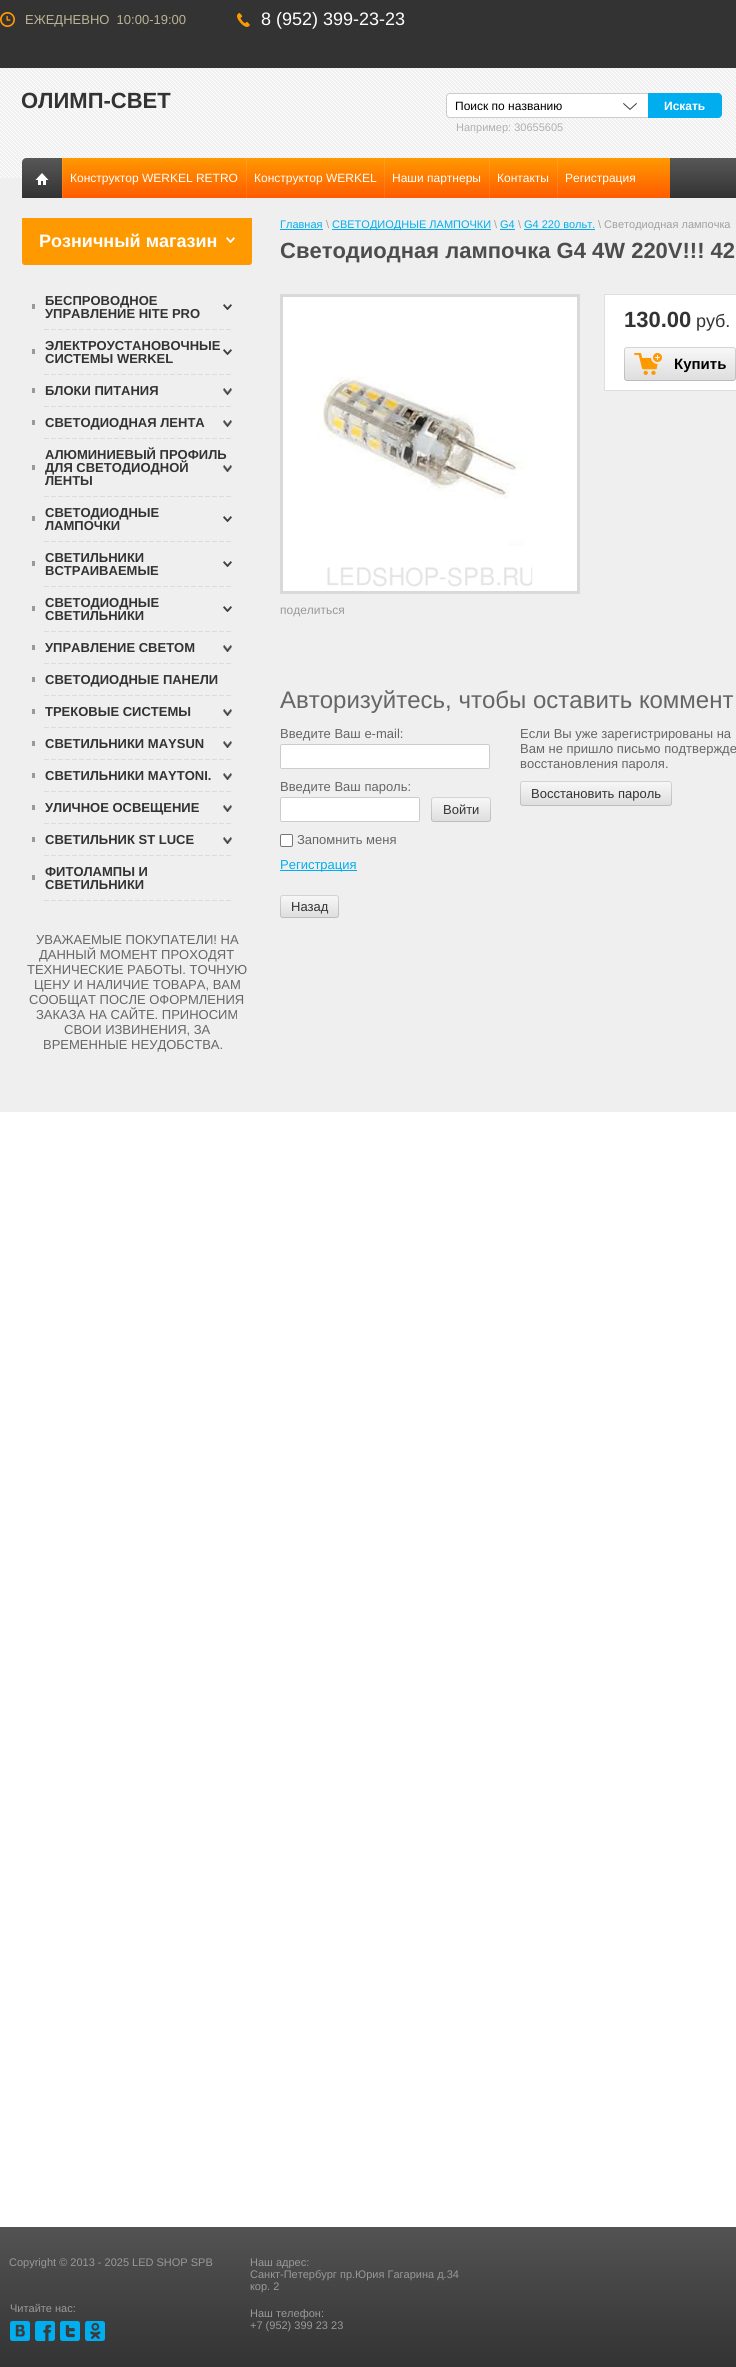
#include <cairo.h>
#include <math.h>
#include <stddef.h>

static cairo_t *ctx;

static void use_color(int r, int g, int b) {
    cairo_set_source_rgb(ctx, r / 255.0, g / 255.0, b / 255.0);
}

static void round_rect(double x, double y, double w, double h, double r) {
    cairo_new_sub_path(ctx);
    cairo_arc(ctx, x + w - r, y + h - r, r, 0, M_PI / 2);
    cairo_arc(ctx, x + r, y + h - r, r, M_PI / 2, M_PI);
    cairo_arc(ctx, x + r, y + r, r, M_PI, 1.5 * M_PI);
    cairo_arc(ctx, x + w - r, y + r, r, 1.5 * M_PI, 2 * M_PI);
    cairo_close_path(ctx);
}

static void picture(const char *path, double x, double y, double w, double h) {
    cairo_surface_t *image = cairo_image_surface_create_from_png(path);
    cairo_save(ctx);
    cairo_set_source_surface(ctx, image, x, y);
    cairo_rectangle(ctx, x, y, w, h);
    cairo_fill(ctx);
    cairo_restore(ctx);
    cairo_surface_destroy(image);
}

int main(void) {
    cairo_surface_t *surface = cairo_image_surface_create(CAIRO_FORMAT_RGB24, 736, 2367);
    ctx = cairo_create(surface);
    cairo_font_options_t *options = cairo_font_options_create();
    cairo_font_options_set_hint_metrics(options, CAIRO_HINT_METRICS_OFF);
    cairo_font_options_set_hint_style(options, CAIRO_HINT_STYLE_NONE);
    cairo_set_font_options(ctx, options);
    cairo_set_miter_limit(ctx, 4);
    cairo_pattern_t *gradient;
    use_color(255, 255, 255);
    cairo_paint(ctx);
    use_color(51, 51, 51);
    cairo_rectangle(ctx, 0, 0, 736, 68);
    cairo_fill(ctx);
    picture("img1.png", 0, 12, 15, 15);
    cairo_select_font_face(ctx, "Liberation Sans", CAIRO_FONT_SLANT_NORMAL, CAIRO_FONT_WEIGHT_NORMAL);
    cairo_set_font_size(ctx, 13);
    use_color(187, 179, 148);
    cairo_move_to(ctx, 25, 24);
    cairo_show_text(ctx, "ЕЖЕДНЕВНО  10:00-19:00");
    picture("img2.png", 237, 13, 13, 14);
    cairo_set_font_size(ctx, 18);
    use_color(255, 255, 255);
    cairo_move_to(ctx, 261, 25);
    cairo_show_text(ctx, "8 (952) 399-23-23");
    use_color(239, 239, 239);
    cairo_rectangle(ctx, 0, 178, 736, 934);
    cairo_fill(ctx);
    picture("img3.png", 0, 68, 736, 110);
    cairo_select_font_face(ctx, "Liberation Sans", CAIRO_FONT_SLANT_NORMAL, CAIRO_FONT_WEIGHT_BOLD);
    cairo_set_font_size(ctx, 22);
    use_color(51, 51, 51);
    cairo_move_to(ctx, 21, 108);
    cairo_show_text(ctx, "ОЛИМП-СВЕТ");
    use_color(255, 255, 255);
    round_rect(446.5, 93.5, 275, 24, 3.5);
    cairo_fill_preserve(ctx);
    use_color(205, 203, 203);
    cairo_set_line_width(ctx, 1);
    cairo_stroke(ctx);
    cairo_select_font_face(ctx, "Liberation Sans", CAIRO_FONT_SLANT_NORMAL, CAIRO_FONT_WEIGHT_NORMAL);
    cairo_set_font_size(ctx, 12);
    use_color(0, 0, 0);
    cairo_move_to(ctx, 455, 110);
    cairo_show_text(ctx, "Поиск по названию");
    use_color(0, 174, 239);
    cairo_new_path(ctx);
    cairo_move_to(ctx, 648, 93);
    cairo_line_to(ctx, 718, 93);
    cairo_curve_to(ctx, 720, 93, 722, 95, 722, 97);
    cairo_line_to(ctx, 722, 114);
    cairo_curve_to(ctx, 722, 116, 720, 118, 718, 118);
    cairo_line_to(ctx, 648, 118);
    cairo_close_path(ctx);
    cairo_fill(ctx);
    cairo_select_font_face(ctx, "Liberation Sans", CAIRO_FONT_SLANT_NORMAL, CAIRO_FONT_WEIGHT_BOLD);
    use_color(255, 255, 255);
    cairo_move_to(ctx, 664, 110);
    cairo_show_text(ctx, "Искать");
    picture("img4.png", 623, 103, 14, 7);
    cairo_select_font_face(ctx, "Liberation Sans", CAIRO_FONT_SLANT_NORMAL, CAIRO_FONT_WEIGHT_NORMAL);
    cairo_set_font_size(ctx, 11);
    use_color(176, 176, 176);
    cairo_move_to(ctx, 456, 131);
    cairo_show_text(ctx, "Например: 30655605");
    gradient = cairo_pattern_create_linear(490, 158, 490, 198);
    cairo_pattern_add_color_stop_rgba(gradient, 0, 1, 0.6, 0, 1);
    cairo_pattern_add_color_stop_rgba(gradient, 1, 1, 0.357, 0, 1);
    cairo_set_source(ctx, gradient);
    cairo_pattern_destroy(gradient);
    cairo_new_path(ctx);
    cairo_move_to(ctx, 27, 158);
    cairo_line_to(ctx, 736, 158);
    cairo_curve_to(ctx, 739, 158, 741, 160, 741, 163);
    cairo_line_to(ctx, 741, 198);
    cairo_line_to(ctx, 22, 198);
    cairo_line_to(ctx, 22, 163);
    cairo_curve_to(ctx, 22, 160, 24, 158, 27, 158);
    cairo_close_path(ctx);
    cairo_fill(ctx);
    cairo_set_source_rgba(ctx, 1, 1, 1, 0.1);
    cairo_rectangle(ctx, 22, 160, 1, 3);
    cairo_fill(ctx);
    gradient = cairo_pattern_create_linear(42, 158, 42, 198);
    cairo_pattern_add_color_stop_rgba(gradient, 0, 0.341, 0.341, 0.341, 1);
    cairo_pattern_add_color_stop_rgba(gradient, 1, 0.2, 0.2, 0.2, 1);
    cairo_set_source(ctx, gradient);
    cairo_pattern_destroy(gradient);
    cairo_new_path(ctx);
    cairo_move_to(ctx, 27, 158);
    cairo_line_to(ctx, 62, 158);
    cairo_line_to(ctx, 62, 198);
    cairo_line_to(ctx, 22, 198);
    cairo_line_to(ctx, 22, 163);
    cairo_curve_to(ctx, 22, 160, 24, 158, 27, 158);
    cairo_close_path(ctx);
    cairo_fill(ctx);
    picture("img5.png", 35, 173, 14, 12);
    cairo_set_source_rgba(ctx, 1, 1, 1, 0.1);
    cairo_rectangle(ctx, 62, 158, 1, 40);
    cairo_fill(ctx);
    cairo_set_font_size(ctx, 12);
    use_color(255, 255, 255);
    cairo_move_to(ctx, 70, 182);
    cairo_show_text(ctx, "Конструктор WERKEL RETRO");
    cairo_set_source_rgba(ctx, 1, 1, 1, 0.1);
    cairo_rectangle(ctx, 246, 158, 1, 40);
    cairo_fill(ctx);
    use_color(255, 255, 255);
    cairo_move_to(ctx, 254, 182);
    cairo_show_text(ctx, "Конструктор WERKEL");
    cairo_set_source_rgba(ctx, 1, 1, 1, 0.1);
    cairo_rectangle(ctx, 384, 158, 1, 40);
    cairo_fill(ctx);
    use_color(255, 255, 255);
    cairo_move_to(ctx, 392, 182);
    cairo_show_text(ctx, "Наши партнеры");
    cairo_set_source_rgba(ctx, 1, 1, 1, 0.1);
    cairo_rectangle(ctx, 489, 158, 1, 40);
    cairo_fill(ctx);
    use_color(255, 255, 255);
    cairo_move_to(ctx, 497, 182);
    cairo_show_text(ctx, "Контакты");
    cairo_set_source_rgba(ctx, 1, 1, 1, 0.1);
    cairo_rectangle(ctx, 557, 158, 1, 40);
    cairo_fill(ctx);
    use_color(255, 255, 255);
    cairo_move_to(ctx, 565, 182);
    cairo_show_text(ctx, "Регистрация");
    gradient = cairo_pattern_create_linear(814, 158, 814, 198);
    cairo_pattern_add_color_stop_rgba(gradient, 0, 0.341, 0.341, 0.341, 1);
    cairo_pattern_add_color_stop_rgba(gradient, 1, 0.2, 0.2, 0.2, 1);
    cairo_set_source(ctx, gradient);
    cairo_pattern_destroy(gradient);
    cairo_rectangle(ctx, 670, 158, 66, 40);
    cairo_fill(ctx);
    cairo_new_path(ctx);
    cairo_move_to(ctx, 22.5, 218.5);
    cairo_line_to(ctx, 251.5, 218.5);
    cairo_line_to(ctx, 251.5, 262);
    cairo_curve_to(ctx, 251.5, 263.5, 250.5, 264.5, 249, 264.5);
    cairo_line_to(ctx, 25, 264.5);
    cairo_curve_to(ctx, 23.5, 264.5, 22.5, 263.5, 22.5, 262);
    cairo_close_path(ctx);
    use_color(255, 153, 0);
    cairo_stroke(ctx);
    cairo_rectangle(ctx, 23, 219, 228, 45);
    cairo_fill(ctx);
    cairo_select_font_face(ctx, "Liberation Sans", CAIRO_FONT_SLANT_NORMAL, CAIRO_FONT_WEIGHT_BOLD);
    cairo_set_font_size(ctx, 18);
    use_color(255, 255, 255);
    cairo_move_to(ctx, 39, 247);
    cairo_show_text(ctx, "Розничный магазин");
    picture("img6.png", 226, 237, 9, 6);
    picture("img7.png", 44, 329, 187, 1);
    use_color(153, 153, 153);
    cairo_rectangle(ctx, 32, 304, 3, 5);
    cairo_fill(ctx);
    cairo_set_font_size(ctx, 13);
    use_color(51, 51, 51);
    cairo_move_to(ctx, 45, 305);
    cairo_show_text(ctx, "БЕСПРОВОДНОЕ");
    picture("img8.png", 223, 304, 9, 6);
    cairo_move_to(ctx, 45, 318);
    cairo_show_text(ctx, "УПРАВЛЕНИЕ HITE PRO");
    picture("img7.png", 44, 374, 187, 1);
    cairo_move_to(ctx, 45, 350);
    cairo_show_text(ctx, "ЭЛЕКТРОУСТАНОВОЧНЫЕ");
    use_color(153, 153, 153);
    cairo_rectangle(ctx, 32, 349, 3, 5);
    cairo_fill(ctx);
    picture("img8.png", 223, 349, 9, 6);
    use_color(51, 51, 51);
    cairo_move_to(ctx, 45, 363);
    cairo_show_text(ctx, "СИСТЕМЫ WERKEL");
    picture("img7.png", 44, 406, 187, 1);
    use_color(153, 153, 153);
    cairo_rectangle(ctx, 32, 388, 3, 5);
    cairo_fill(ctx);
    use_color(51, 51, 51);
    cairo_move_to(ctx, 45, 395);
    cairo_show_text(ctx, "БЛОКИ ПИТАНИЯ");
    picture("img9.png", 223, 388, 9, 7);
    picture("img7.png", 44, 438, 187, 1);
    use_color(153, 153, 153);
    cairo_rectangle(ctx, 32, 420, 3, 5);
    cairo_fill(ctx);
    use_color(51, 51, 51);
    cairo_move_to(ctx, 45, 427);
    cairo_show_text(ctx, "СВЕТОДИОДНАЯ ЛЕНТА");
    picture("img9.png", 223, 420, 9, 7);
    picture("img7.png", 44, 496, 187, 1);
    cairo_move_to(ctx, 45, 459);
    cairo_show_text(ctx, "АЛЮМИНИЕВЫЙ ПРОФИЛЬ");
    use_color(153, 153, 153);
    cairo_rectangle(ctx, 32, 465, 3, 5);
    cairo_fill(ctx);
    use_color(51, 51, 51);
    cairo_move_to(ctx, 45, 472);
    cairo_show_text(ctx, "ДЛЯ СВЕТОДИОДНОЙ");
    picture("img9.png", 223, 465, 9, 7);
    cairo_move_to(ctx, 45, 485);
    cairo_show_text(ctx, "ЛЕНТЫ");
    picture("img7.png", 44, 541, 187, 1);
    use_color(153, 153, 153);
    cairo_rectangle(ctx, 32, 516, 3, 5);
    cairo_fill(ctx);
    use_color(51, 51, 51);
    cairo_move_to(ctx, 45, 517);
    cairo_show_text(ctx, "СВЕТОДИОДНЫЕ");
    picture("img8.png", 223, 516, 9, 6);
    cairo_move_to(ctx, 45, 530);
    cairo_show_text(ctx, "ЛАМПОЧКИ");
    picture("img7.png", 44, 586, 187, 1);
    cairo_move_to(ctx, 45, 562);
    cairo_show_text(ctx, "СВЕТИЛЬНИКИ");
    use_color(153, 153, 153);
    cairo_rectangle(ctx, 32, 561, 3, 5);
    cairo_fill(ctx);
    picture("img8.png", 223, 561, 9, 6);
    use_color(51, 51, 51);
    cairo_move_to(ctx, 45, 575);
    cairo_show_text(ctx, "ВСТРАИВАЕМЫЕ");
    picture("img7.png", 44, 631, 187, 1);
    use_color(153, 153, 153);
    cairo_rectangle(ctx, 32, 606, 3, 5);
    cairo_fill(ctx);
    use_color(51, 51, 51);
    cairo_move_to(ctx, 45, 607);
    cairo_show_text(ctx, "СВЕТОДИОДНЫЕ");
    picture("img8.png", 223, 606, 9, 6);
    cairo_move_to(ctx, 45, 620);
    cairo_show_text(ctx, "СВЕТИЛЬНИКИ");
    picture("img7.png", 44, 663, 187, 1);
    use_color(153, 153, 153);
    cairo_rectangle(ctx, 32, 645, 3, 5);
    cairo_fill(ctx);
    use_color(51, 51, 51);
    cairo_move_to(ctx, 45, 652);
    cairo_show_text(ctx, "УПРАВЛЕНИЕ СВЕТОМ");
    picture("img9.png", 223, 645, 9, 7);
    picture("img7.png", 44, 695, 187, 1);
    use_color(153, 153, 153);
    cairo_rectangle(ctx, 32, 677, 3, 5);
    cairo_fill(ctx);
    use_color(51, 51, 51);
    cairo_move_to(ctx, 45, 684);
    cairo_show_text(ctx, "СВЕТОДИОДНЫЕ ПАНЕЛИ");
    picture("img7.png", 44, 727, 187, 1);
    use_color(153, 153, 153);
    cairo_rectangle(ctx, 32, 709, 3, 5);
    cairo_fill(ctx);
    use_color(51, 51, 51);
    cairo_move_to(ctx, 45, 716);
    cairo_show_text(ctx, "ТРЕКОВЫЕ СИСТЕМЫ");
    picture("img9.png", 223, 709, 9, 7);
    picture("img7.png", 44, 759, 187, 1);
    use_color(153, 153, 153);
    cairo_rectangle(ctx, 32, 741, 3, 5);
    cairo_fill(ctx);
    use_color(51, 51, 51);
    cairo_move_to(ctx, 45, 748);
    cairo_show_text(ctx, "СВЕТИЛЬНИКИ MAYSUN");
    picture("img9.png", 223, 741, 9, 7);
    picture("img7.png", 44, 791, 187, 1);
    use_color(153, 153, 153);
    cairo_rectangle(ctx, 32, 773, 3, 5);
    cairo_fill(ctx);
    use_color(51, 51, 51);
    cairo_move_to(ctx, 45, 780);
    cairo_show_text(ctx, "СВЕТИЛЬНИКИ MAYTONI.");
    picture("img9.png", 223, 773, 9, 7);
    picture("img7.png", 44, 823, 187, 1);
    use_color(153, 153, 153);
    cairo_rectangle(ctx, 32, 805, 3, 5);
    cairo_fill(ctx);
    use_color(51, 51, 51);
    cairo_move_to(ctx, 45, 812);
    cairo_show_text(ctx, "УЛИЧНОЕ ОСВЕЩЕНИЕ");
    picture("img9.png", 223, 805, 9, 7);
    picture("img7.png", 44, 855, 187, 1);
    use_color(153, 153, 153);
    cairo_rectangle(ctx, 32, 837, 3, 5);
    cairo_fill(ctx);
    use_color(51, 51, 51);
    cairo_move_to(ctx, 45, 844);
    cairo_show_text(ctx, "СВЕТИЛЬНИК ST LUCE");
    picture("img9.png", 223, 837, 9, 7);
    picture("img7.png", 44, 900, 187, 1);
    cairo_move_to(ctx, 45, 876);
    cairo_show_text(ctx, "ФИТОЛАМПЫ И");
    use_color(153, 153, 153);
    cairo_rectangle(ctx, 32, 875, 3, 5);
    cairo_fill(ctx);
    use_color(51, 51, 51);
    cairo_move_to(ctx, 45, 889);
    cairo_show_text(ctx, "СВЕТИЛЬНИКИ");
    cairo_select_font_face(ctx, "Liberation Sans", CAIRO_FONT_SLANT_NORMAL, CAIRO_FONT_WEIGHT_NORMAL);
    use_color(102, 102, 102);
    cairo_move_to(ctx, 36, 944);
    cairo_show_text(ctx, "УВАЖАЕМЫЕ ПОКУПАТЕЛИ! НА");
    cairo_move_to(ctx, 39, 959);
    cairo_show_text(ctx, "ДАННЫЙ МОМЕНТ ПРОХОДЯТ");
    cairo_move_to(ctx, 27, 974);
    cairo_show_text(ctx, "ТЕХНИЧЕСКИЕ РАБОТЫ. ТОЧНУЮ");
    cairo_move_to(ctx, 34, 989);
    cairo_show_text(ctx, "ЦЕНУ И НАЛИЧИЕ ТОВАРА, ВАМ");
    cairo_move_to(ctx, 29, 1004);
    cairo_show_text(ctx, "СООБЩАТ ПОСЛЕ ОФОРМЛЕНИЯ");
    cairo_move_to(ctx, 36, 1019);
    cairo_show_text(ctx, "ЗАКАЗА НА САЙТЕ. ПРИНОСИМ");
    cairo_move_to(ctx, 64, 1034);
    cairo_show_text(ctx, "СВОИ ИЗВИНЕНИЯ, ЗА");
    cairo_move_to(ctx, 43, 1049);
    cairo_show_text(ctx, "ВРЕМЕННЫЕ НЕУДОБСТВА.");
    cairo_set_font_size(ctx, 11);
    use_color(0, 174, 239);
    cairo_move_to(ctx, 280, 228);
    cairo_show_text(ctx, "Главная");
    cairo_rectangle(ctx, 280, 229, 43, 1);
    cairo_fill(ctx);
    use_color(160, 160, 160);
    cairo_move_to(ctx, 326, 228);
    cairo_show_text(ctx, "\\");
    use_color(0, 174, 239);
    cairo_rectangle(ctx, 332, 229, 159, 1);
    cairo_fill(ctx);
    cairo_move_to(ctx, 332, 228);
    cairo_show_text(ctx, "СВЕТОДИОДНЫЕ ЛАМПОЧКИ");
    use_color(160, 160, 160);
    cairo_move_to(ctx, 494, 228);
    cairo_show_text(ctx, "\\");
    use_color(0, 174, 239);
    cairo_move_to(ctx, 500, 228);
    cairo_show_text(ctx, "G4");
    cairo_rectangle(ctx, 500, 229, 15, 1);
    cairo_fill(ctx);
    use_color(160, 160, 160);
    cairo_move_to(ctx, 518, 228);
    cairo_show_text(ctx, "\\");
    use_color(0, 174, 239);
    cairo_move_to(ctx, 524, 228);
    cairo_show_text(ctx, "G4 220 вольт.");
    cairo_rectangle(ctx, 524, 229, 71, 1);
    cairo_fill(ctx);
    use_color(160, 160, 160);
    cairo_move_to(ctx, 598, 228);
    cairo_show_text(ctx, "\\ Светодиодная лампочка");
    cairo_select_font_face(ctx, "Liberation Sans", CAIRO_FONT_SLANT_NORMAL, CAIRO_FONT_WEIGHT_BOLD);
    cairo_set_font_size(ctx, 22);
    use_color(77, 77, 77);
    cairo_move_to(ctx, 280, 258);
    cairo_show_text(ctx, "Светодиодная лампочка G4 4W 220V!!! 42");
    use_color(255, 255, 255);
    cairo_rectangle(ctx, 604.5, 294.5, 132, 96);
    cairo_fill_preserve(ctx);
    use_color(223, 223, 223);
    cairo_stroke(ctx);
    use_color(51, 51, 51);
    cairo_move_to(ctx, 624, 327);
    cairo_show_text(ctx, "130.00");
    cairo_select_font_face(ctx, "Liberation Sans", CAIRO_FONT_SLANT_NORMAL, CAIRO_FONT_WEIGHT_NORMAL);
    cairo_set_font_size(ctx, 18);
    cairo_move_to(ctx, 696, 327);
    cairo_show_text(ctx, "руб.");
    gradient = cairo_pattern_create_linear(680, 347, 680, 381);
    cairo_pattern_add_color_stop_rgba(gradient, 0, 0.973, 0.973, 0.973, 1);
    cairo_pattern_add_color_stop_rgba(gradient, 1, 0.867, 0.867, 0.867, 1);
    cairo_set_source(ctx, gradient);
    cairo_pattern_destroy(gradient);
    round_rect(624, 347, 112, 34, 3);
    cairo_fill(ctx);
    round_rect(624.5, 347.5, 111, 33, 2.5);
    cairo_set_source_rgba(ctx, 0, 0, 0, 0.15);
    cairo_stroke(ctx);
    picture("img10.png", 634, 353, 28, 22);
    cairo_select_font_face(ctx, "Liberation Sans", CAIRO_FONT_SLANT_NORMAL, CAIRO_FONT_WEIGHT_BOLD);
    cairo_set_font_size(ctx, 15);
    use_color(0, 0, 0);
    cairo_move_to(ctx, 674, 369);
    cairo_show_text(ctx, "Купить");
    cairo_rectangle(ctx, 281.5, 295.5, 297, 297);
    use_color(217, 217, 217);
    cairo_set_line_width(ctx, 3);
    cairo_stroke(ctx);
    picture("img11.png", 283, 297, 294, 294);
    cairo_select_font_face(ctx, "Liberation Sans", CAIRO_FONT_SLANT_NORMAL, CAIRO_FONT_WEIGHT_NORMAL);
    cairo_set_font_size(ctx, 12);
    use_color(153, 153, 153);
    cairo_move_to(ctx, 280, 614);
    cairo_show_text(ctx, "поделиться");
    cairo_set_font_size(ctx, 24);
    use_color(102, 102, 102);
    cairo_move_to(ctx, 280, 708);
    cairo_show_text(ctx, "Авторизуйтесь, чтобы оставить коммент");
    cairo_set_font_size(ctx, 13);
    cairo_move_to(ctx, 280, 738);
    cairo_show_text(ctx, "Введите Ваш e-mail:");
    use_color(255, 255, 255);
    round_rect(280.5, 744.5, 209, 24, 1.5);
    cairo_fill_preserve(ctx);
    use_color(204, 204, 204);
    cairo_set_line_width(ctx, 1);
    cairo_stroke(ctx);
    use_color(102, 102, 102);
    cairo_move_to(ctx, 280, 791);
    cairo_show_text(ctx, "Введите Ваш пароль:");
    use_color(255, 255, 255);
    round_rect(280.5, 797.5, 139, 24, 1.5);
    cairo_fill_preserve(ctx);
    use_color(204, 204, 204);
    cairo_stroke(ctx);
    gradient = cairo_pattern_create_linear(461, 797, 461, 822);
    cairo_pattern_add_color_stop_rgba(gradient, 0, 0.973, 0.973, 0.973, 1);
    cairo_pattern_add_color_stop_rgba(gradient, 1, 0.867, 0.867, 0.867, 1);
    cairo_set_source(ctx, gradient);
    cairo_pattern_destroy(gradient);
    round_rect(431, 797, 60, 25, 3);
    cairo_fill(ctx);
    round_rect(431.5, 797.5, 59, 24, 2.5);
    cairo_set_source_rgba(ctx, 0, 0, 0, 0.15);
    cairo_stroke(ctx);
    use_color(51, 51, 51);
    cairo_move_to(ctx, 443, 814);
    cairo_show_text(ctx, "Войти");
    use_color(255, 255, 255);
    round_rect(280.5, 834.5, 12, 12, 1.5);
    cairo_fill_preserve(ctx);
    use_color(118, 118, 118);
    cairo_stroke(ctx);
    use_color(102, 102, 102);
    cairo_move_to(ctx, 297, 844);
    cairo_show_text(ctx, "Запомнить меня");
    use_color(0, 174, 239);
    cairo_rectangle(ctx, 280, 870, 77, 1);
    cairo_fill(ctx);
    cairo_move_to(ctx, 280, 869);
    cairo_show_text(ctx, "Регистрация");
    use_color(102, 102, 102);
    cairo_move_to(ctx, 520, 738);
    cairo_show_text(ctx, "Если Вы уже зарегистрированы на");
    cairo_move_to(ctx, 520, 753);
    cairo_show_text(ctx, "Вам не пришло письмо подтвержде");
    cairo_move_to(ctx, 520, 768);
    cairo_show_text(ctx, "восстановления пароля.");
    gradient = cairo_pattern_create_linear(596, 781, 596, 806);
    cairo_pattern_add_color_stop_rgba(gradient, 0, 0.973, 0.973, 0.973, 1);
    cairo_pattern_add_color_stop_rgba(gradient, 1, 0.867, 0.867, 0.867, 1);
    cairo_set_source(ctx, gradient);
    cairo_pattern_destroy(gradient);
    round_rect(520, 781, 152, 25, 3);
    cairo_fill(ctx);
    round_rect(520.5, 781.5, 151, 24, 2.5);
    cairo_set_source_rgba(ctx, 0, 0, 0, 0.15);
    cairo_stroke(ctx);
    use_color(51, 51, 51);
    cairo_move_to(ctx, 531, 798);
    cairo_show_text(ctx, "Восстановить пароль");
    gradient = cairo_pattern_create_linear(310, 895, 310, 918);
    cairo_pattern_add_color_stop_rgba(gradient, 0, 0.973, 0.973, 0.973, 1);
    cairo_pattern_add_color_stop_rgba(gradient, 1, 0.867, 0.867, 0.867, 1);
    cairo_set_source(ctx, gradient);
    cairo_pattern_destroy(gradient);
    round_rect(280, 895, 59, 23, 3);
    cairo_fill(ctx);
    round_rect(280.5, 895.5, 58, 22, 2.5);
    cairo_set_source_rgba(ctx, 0, 0, 0, 0.15);
    cairo_stroke(ctx);
    use_color(51, 51, 51);
    cairo_move_to(ctx, 291, 911);
    cairo_show_text(ctx, "Назад");
    gradient = cairo_pattern_create_linear(490, 2227, 490, 2367);
    cairo_pattern_add_color_stop_rgba(gradient, 0, 0.325, 0.325, 0.325, 1);
    cairo_pattern_add_color_stop_rgba(gradient, 1, 0.2, 0.2, 0.2, 1);
    cairo_set_source(ctx, gradient);
    cairo_pattern_destroy(gradient);
    cairo_rectangle(ctx, 0, 2227, 736, 140);
    cairo_fill(ctx);
    cairo_set_font_size(ctx, 11);
    use_color(153, 153, 153);
    cairo_move_to(ctx, 9, 2266);
    cairo_show_text(ctx, "Copyright © 2013 - 2025 LED SHOP SPB");
    cairo_move_to(ctx, 250, 2266);
    cairo_show_text(ctx, "Наш адрес:");
    cairo_move_to(ctx, 250, 2278);
    cairo_show_text(ctx, "Санкт-Петербург пр.Юрия Гагарина д.34");
    cairo_move_to(ctx, 250, 2290);
    cairo_show_text(ctx, "кор. 2");
    cairo_move_to(ctx, 250, 2317);
    cairo_show_text(ctx, "Наш телефон:");
    cairo_move_to(ctx, 250, 2329);
    cairo_show_text(ctx, "+7 (952) 399 23 23");
    cairo_move_to(ctx, 10, 2312);
    cairo_show_text(ctx, "Читайте нас:");
    picture("img12.png", 10, 2321, 20, 20);
    picture("img13.png", 35, 2321, 20, 20);
    picture("img14.png", 60, 2321, 20, 20);
    picture("img15.png", 85, 2321, 20, 20);
    cairo_surface_write_to_png(surface, "result.png");
    cairo_font_options_destroy(options);
    cairo_destroy(ctx);
    cairo_surface_destroy(surface);
    return 0;
}
